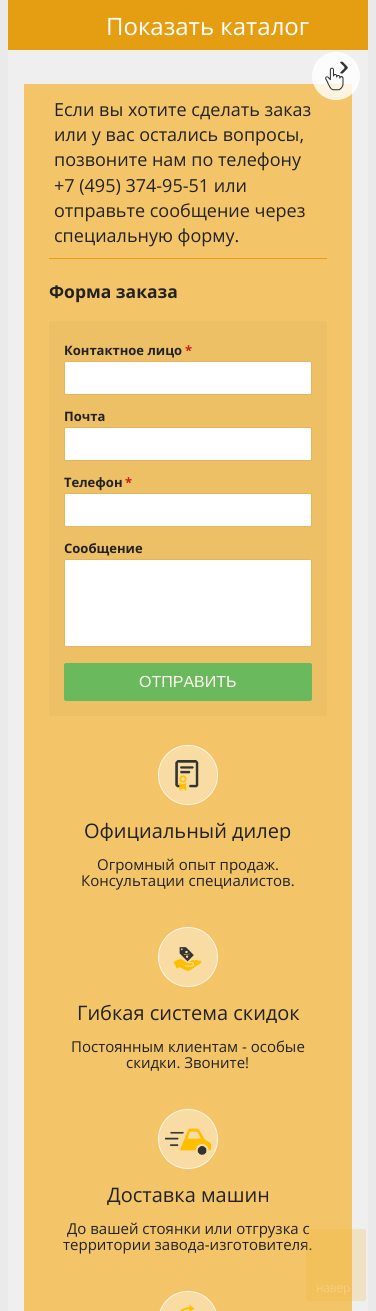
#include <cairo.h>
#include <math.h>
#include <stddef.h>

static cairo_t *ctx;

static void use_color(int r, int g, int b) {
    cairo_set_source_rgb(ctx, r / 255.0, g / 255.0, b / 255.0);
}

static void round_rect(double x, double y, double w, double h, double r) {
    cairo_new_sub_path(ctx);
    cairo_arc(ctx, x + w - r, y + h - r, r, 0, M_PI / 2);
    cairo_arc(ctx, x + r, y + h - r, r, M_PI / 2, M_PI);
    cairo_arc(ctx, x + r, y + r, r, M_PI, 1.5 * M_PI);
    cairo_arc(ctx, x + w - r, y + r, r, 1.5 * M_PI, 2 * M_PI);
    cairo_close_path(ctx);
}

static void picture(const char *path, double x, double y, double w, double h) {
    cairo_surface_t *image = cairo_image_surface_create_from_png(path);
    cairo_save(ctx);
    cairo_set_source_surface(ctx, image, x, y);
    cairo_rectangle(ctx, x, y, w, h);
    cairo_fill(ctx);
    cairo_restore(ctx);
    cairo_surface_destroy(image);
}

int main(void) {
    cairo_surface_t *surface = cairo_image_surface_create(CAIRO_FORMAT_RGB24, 376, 1311);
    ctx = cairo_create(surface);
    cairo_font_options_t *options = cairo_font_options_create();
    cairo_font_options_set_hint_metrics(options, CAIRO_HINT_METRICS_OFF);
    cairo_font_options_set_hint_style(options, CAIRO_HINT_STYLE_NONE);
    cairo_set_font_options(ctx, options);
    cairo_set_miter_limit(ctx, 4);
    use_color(234, 234, 234);
    cairo_paint(ctx);
    use_color(229, 158, 17);
    cairo_rectangle(ctx, 8, 0, 360, 50);
    cairo_fill(ctx);
    cairo_select_font_face(ctx, "Open Sans", CAIRO_FONT_SLANT_NORMAL, CAIRO_FONT_WEIGHT_NORMAL);
    cairo_set_font_size(ctx, 24);
    use_color(255, 255, 255);
    cairo_move_to(ctx, 106, 35);
    cairo_show_text(ctx, "Показать каталог");
    use_color(239, 239, 239);
    cairo_rectangle(ctx, 8, 50, 360, 1261);
    cairo_fill(ctx);
    use_color(244, 197, 104);
    cairo_rectangle(ctx, 24, 84, 328, 1227);
    cairo_fill(ctx);
    cairo_set_source_rgba(ctx, 1, 1, 1, 0.8);
    cairo_arc(ctx, 336, 76, 24, 0, 2 * M_PI);
    cairo_fill(ctx);
    picture("img1.png", 325, 61, 23, 30);
    use_color(229, 158, 17);
    cairo_rectangle(ctx, 49, 258, 278, 1);
    cairo_fill(ctx);
    cairo_set_font_size(ctx, 18);
    use_color(34, 34, 34);
    cairo_move_to(ctx, 54, 116);
    cairo_show_text(ctx, "Если вы хотите сделать заказ");
    cairo_move_to(ctx, 54, 141);
    cairo_show_text(ctx, "или у вас остались вопросы,");
    cairo_move_to(ctx, 54, 166);
    cairo_show_text(ctx, "позвоните нам по телефону");
    cairo_move_to(ctx, 54, 192);
    cairo_show_text(ctx, "+7 (495) 374-95-51 или");
    cairo_move_to(ctx, 54, 217);
    cairo_show_text(ctx, "отправьте сообщение через");
    cairo_move_to(ctx, 54, 242);
    cairo_show_text(ctx, "специальную форму.");
    cairo_select_font_face(ctx, "Open Sans", CAIRO_FONT_SLANT_NORMAL, CAIRO_FONT_WEIGHT_BOLD);
    cairo_set_font_size(ctx, 17.5);
    cairo_move_to(ctx, 49, 298);
    cairo_show_text(ctx, "Форма заказа");
    use_color(238, 192, 102);
    cairo_rectangle(ctx, 49, 321, 278, 395);
    cairo_fill(ctx);
    cairo_set_font_size(ctx, 13);
    use_color(34, 34, 34);
    cairo_move_to(ctx, 64, 355);
    cairo_show_text(ctx, "Контактное лицо");
    use_color(201, 31, 31);
    cairo_move_to(ctx, 185, 355);
    cairo_show_text(ctx, "*");
    use_color(255, 255, 255);
    round_rect(64.5, 361.5, 247, 33, 1.5);
    cairo_fill_preserve(ctx);
    use_color(226, 182, 97);
    cairo_set_line_width(ctx, 1);
    cairo_stroke(ctx);
    use_color(34, 34, 34);
    cairo_move_to(ctx, 64, 421);
    cairo_show_text(ctx, "Почта");
    use_color(255, 255, 255);
    round_rect(64.5, 427.5, 247, 33, 1.5);
    cairo_fill_preserve(ctx);
    use_color(226, 182, 97);
    cairo_stroke(ctx);
    use_color(34, 34, 34);
    cairo_move_to(ctx, 64, 487);
    cairo_show_text(ctx, "Телефон");
    use_color(201, 31, 31);
    cairo_move_to(ctx, 125, 487);
    cairo_show_text(ctx, "*");
    use_color(255, 255, 255);
    round_rect(64.5, 493.5, 247, 33, 1.5);
    cairo_fill_preserve(ctx);
    use_color(226, 182, 97);
    cairo_stroke(ctx);
    use_color(34, 34, 34);
    cairo_move_to(ctx, 64, 553);
    cairo_show_text(ctx, "Сообщение");
    use_color(255, 255, 255);
    round_rect(64.5, 559.5, 247, 87, 1.5);
    cairo_fill_preserve(ctx);
    use_color(226, 182, 97);
    cairo_stroke(ctx);
    use_color(107, 185, 93);
    round_rect(64, 663, 248, 38, 2);
    cairo_fill(ctx);
    cairo_select_font_face(ctx, "Liberation Sans", CAIRO_FONT_SLANT_NORMAL, CAIRO_FONT_WEIGHT_NORMAL);
    cairo_set_font_size(ctx, 16);
    use_color(253, 249, 240);
    cairo_move_to(ctx, 139, 687);
    cairo_show_text(ctx, "ОТПРАВИТЬ");
    use_color(248, 220, 164);
    cairo_new_path(ctx);
    cairo_arc(ctx, 188, 775, 29, 0, 2 * M_PI);
    cairo_fill(ctx);
    picture("img2.png", 175, 760, 24, 31);
    cairo_arc(ctx, 188, 775, 29.5, 0, 2 * M_PI);
    cairo_set_source_rgba(ctx, 1, 1, 1, 0.9);
    cairo_stroke(ctx);
    cairo_save(ctx);
    cairo_rectangle(ctx, 49, 821, 278, 20);
    cairo_clip(ctx);
    cairo_select_font_face(ctx, "Open Sans", CAIRO_FONT_SLANT_NORMAL, CAIRO_FONT_WEIGHT_NORMAL);
    cairo_set_font_size(ctx, 20);
    use_color(34, 34, 34);
    cairo_move_to(ctx, 84, 838);
    cairo_show_text(ctx, "Официальный дилер");
    cairo_restore(ctx);
    cairo_select_font_face(ctx, "Open Sans", CAIRO_FONT_SLANT_NORMAL, CAIRO_FONT_WEIGHT_NORMAL);
    cairo_set_font_size(ctx, 15);
    use_color(34, 34, 34);
    cairo_move_to(ctx, 97, 870);
    cairo_show_text(ctx, "Огромный опыт продаж.");
    cairo_move_to(ctx, 81, 886);
    cairo_show_text(ctx, "Консультации специалистов.");
    use_color(248, 220, 164);
    cairo_new_path(ctx);
    cairo_arc(ctx, 188, 957, 29, 0, 2 * M_PI);
    cairo_fill(ctx);
    picture("img3.png", 173, 947, 29, 25);
    cairo_arc(ctx, 188, 957, 29.5, 0, 2 * M_PI);
    cairo_set_source_rgba(ctx, 1, 1, 1, 0.9);
    cairo_stroke(ctx);
    cairo_save(ctx);
    cairo_rectangle(ctx, 49, 1003, 278, 20);
    cairo_clip(ctx);
    cairo_set_font_size(ctx, 20);
    use_color(34, 34, 34);
    cairo_move_to(ctx, 77, 1020);
    cairo_show_text(ctx, "Гибкая система скидок");
    cairo_restore(ctx);
    use_color(34, 34, 34);
    cairo_move_to(ctx, 71, 1052);
    cairo_show_text(ctx, "Постоянным клиентам - особые");
    cairo_move_to(ctx, 126, 1068);
    cairo_show_text(ctx, "скидки. Звоните!");
    use_color(248, 220, 164);
    cairo_new_path(ctx);
    cairo_arc(ctx, 188, 1139, 29, 0, 2 * M_PI);
    cairo_fill(ctx);
    picture("img4.png", 165, 1128, 46, 27);
    cairo_arc(ctx, 188, 1139, 29.5, 0, 2 * M_PI);
    cairo_set_source_rgba(ctx, 1, 1, 1, 0.9);
    cairo_stroke(ctx);
    cairo_save(ctx);
    cairo_rectangle(ctx, 49, 1185, 278, 20);
    cairo_clip(ctx);
    cairo_set_font_size(ctx, 20);
    use_color(34, 34, 34);
    cairo_move_to(ctx, 107, 1202);
    cairo_show_text(ctx, "Доставка машин");
    cairo_restore(ctx);
    use_color(34, 34, 34);
    cairo_move_to(ctx, 67, 1234);
    cairo_show_text(ctx, "До вашей стоянки или отгрузка с");
    cairo_move_to(ctx, 63, 1250);
    cairo_show_text(ctx, "территории завода-изготовителя.");
    use_color(248, 220, 164);
    round_rect(159, 1292, 58, 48, 29);
    cairo_fill(ctx);
    picture("img5.png", 180, 1305, 15, 6);
    round_rect(158.5, 1291.5, 59, 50, 29.5);
    cairo_set_source_rgba(ctx, 1, 1, 1, 0.9);
    cairo_stroke(ctx);
    cairo_set_source_rgba(ctx, 0.941, 0.702, 0.224, 0.24);
    round_rect(306, 1229, 60, 72, 2);
    cairo_fill(ctx);
    cairo_select_font_face(ctx, "Open Sans Light", CAIRO_FONT_SLANT_NORMAL, CAIRO_FONT_WEIGHT_NORMAL);
    cairo_set_font_size(ctx, 12);
    use_color(246, 213, 148);
    cairo_move_to(ctx, 316, 1292);
    cairo_show_text(ctx, "навер");
    cairo_surface_write_to_png(surface, "result.png");
    cairo_font_options_destroy(options);
    cairo_destroy(ctx);
    cairo_surface_destroy(surface);
    return 0;
}
